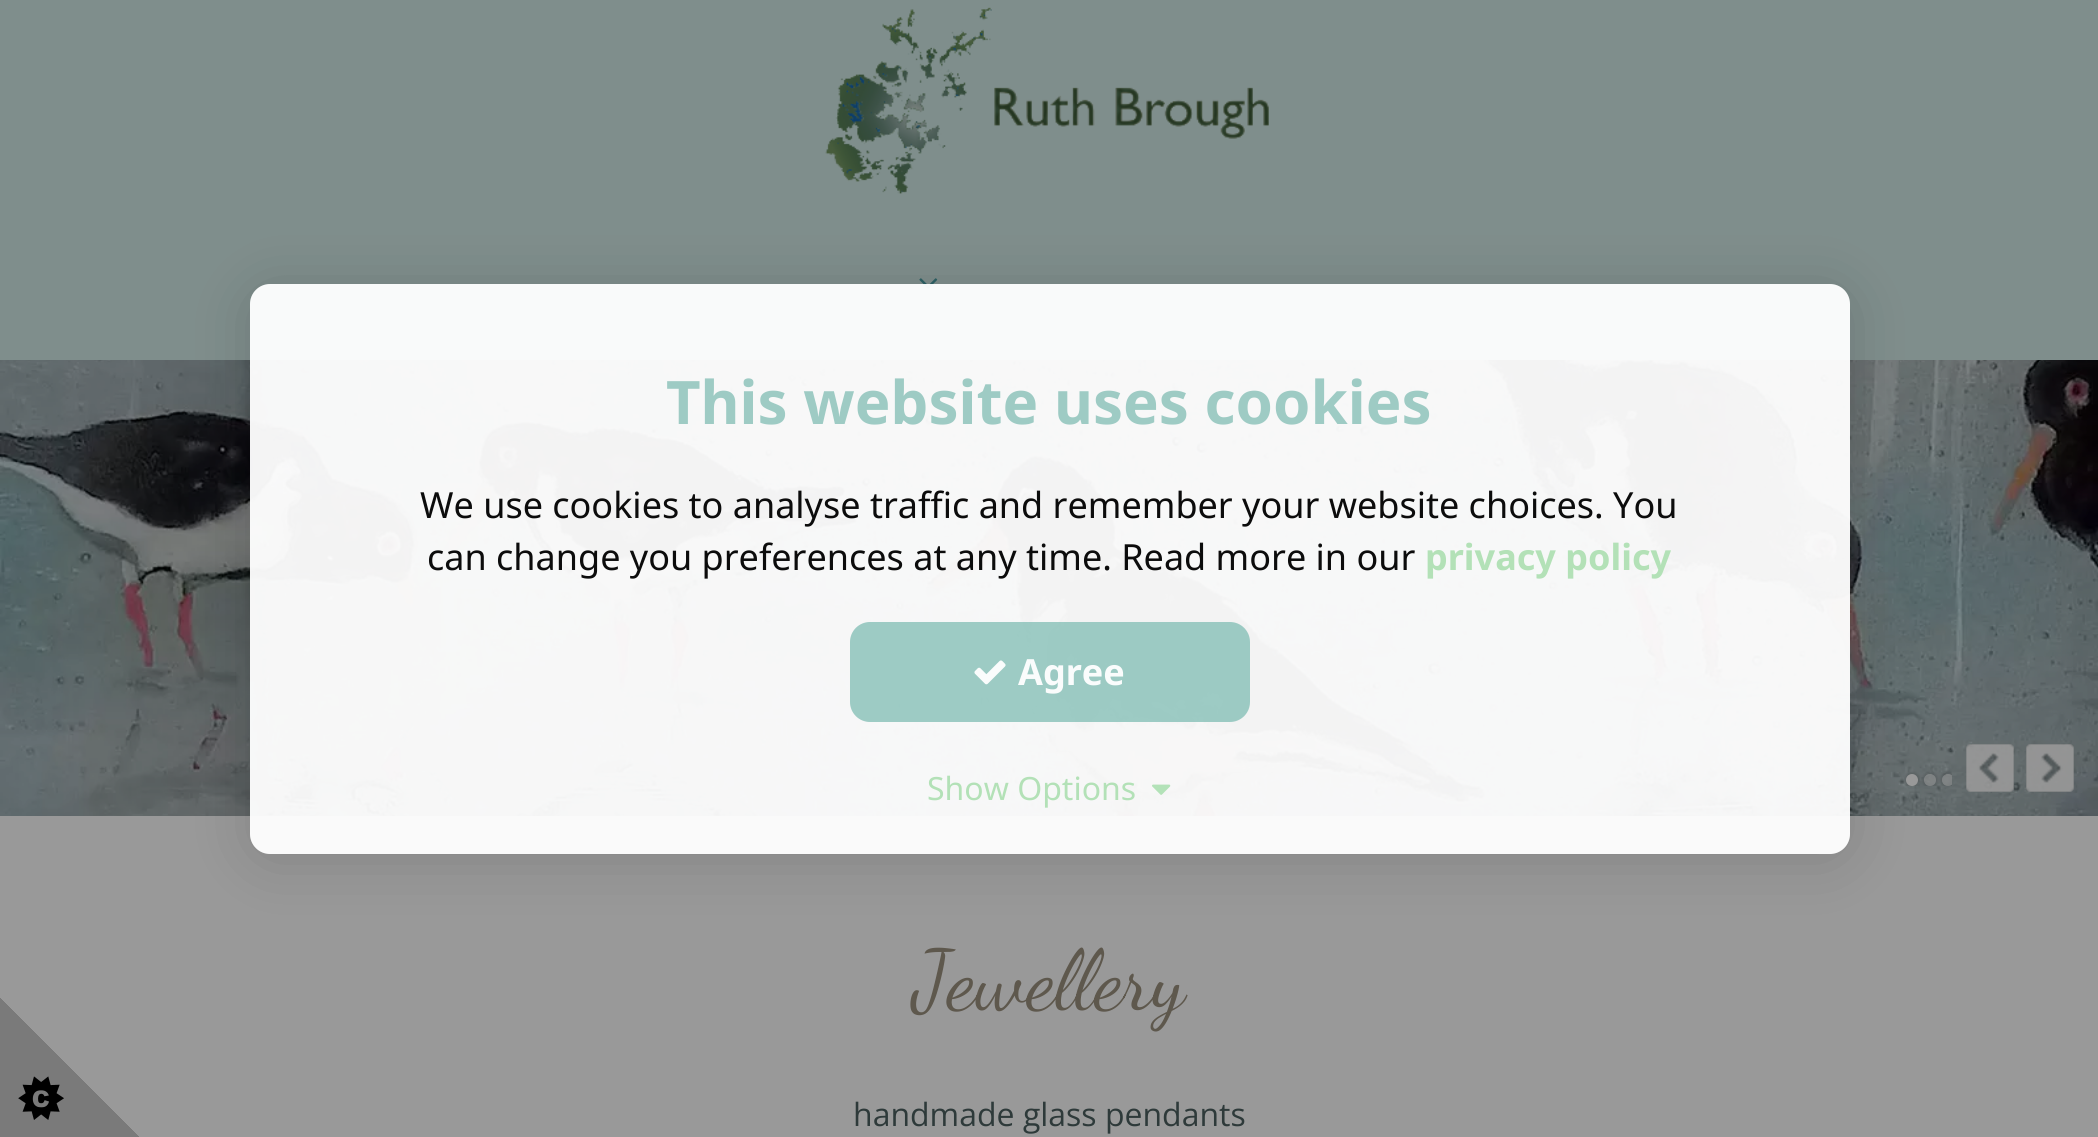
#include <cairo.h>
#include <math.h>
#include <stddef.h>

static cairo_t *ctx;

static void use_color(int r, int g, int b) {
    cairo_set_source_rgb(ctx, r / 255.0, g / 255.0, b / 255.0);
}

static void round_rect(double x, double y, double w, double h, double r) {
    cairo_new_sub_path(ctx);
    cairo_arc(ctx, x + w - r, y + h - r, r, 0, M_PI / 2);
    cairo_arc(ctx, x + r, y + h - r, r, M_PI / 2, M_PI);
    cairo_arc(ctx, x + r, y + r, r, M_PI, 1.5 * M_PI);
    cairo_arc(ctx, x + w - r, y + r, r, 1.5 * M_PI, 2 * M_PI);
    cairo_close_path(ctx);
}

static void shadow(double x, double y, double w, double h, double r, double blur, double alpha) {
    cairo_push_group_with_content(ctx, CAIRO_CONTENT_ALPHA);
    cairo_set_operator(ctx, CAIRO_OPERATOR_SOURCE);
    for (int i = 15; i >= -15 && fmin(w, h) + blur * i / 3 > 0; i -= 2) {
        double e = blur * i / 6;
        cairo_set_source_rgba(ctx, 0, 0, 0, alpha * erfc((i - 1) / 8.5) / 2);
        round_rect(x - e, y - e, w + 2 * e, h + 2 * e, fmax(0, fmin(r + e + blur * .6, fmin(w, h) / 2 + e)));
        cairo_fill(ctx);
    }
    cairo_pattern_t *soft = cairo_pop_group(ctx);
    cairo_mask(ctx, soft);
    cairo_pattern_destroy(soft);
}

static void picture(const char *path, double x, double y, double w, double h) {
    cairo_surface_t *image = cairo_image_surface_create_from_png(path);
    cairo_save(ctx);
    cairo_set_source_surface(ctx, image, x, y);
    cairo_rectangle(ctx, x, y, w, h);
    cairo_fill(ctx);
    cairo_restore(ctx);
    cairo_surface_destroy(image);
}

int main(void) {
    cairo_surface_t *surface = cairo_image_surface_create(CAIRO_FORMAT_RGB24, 2098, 1137);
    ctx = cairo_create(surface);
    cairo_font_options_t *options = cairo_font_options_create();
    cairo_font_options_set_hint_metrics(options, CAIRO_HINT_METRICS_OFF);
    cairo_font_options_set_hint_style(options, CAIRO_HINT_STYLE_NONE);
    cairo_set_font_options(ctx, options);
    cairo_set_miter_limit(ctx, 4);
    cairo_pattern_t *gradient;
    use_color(153, 153, 153);
    cairo_paint(ctx);
    use_color(127, 142, 140);
    cairo_rectangle(ctx, 0, 0, 2098, 360);
    cairo_fill(ctx);
    picture("img5.png", 919, 278, 19, 11);
    picture("img6.png", 0, 360, 2098, 456);
    cairo_save(ctx);
    cairo_rectangle(ctx, 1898, 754, 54, 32);
    cairo_clip(ctx);
    use_color(0, 0, 0);
    shadow(1904, 772, 16, 16, 8, 1, 0.1);
    cairo_restore(ctx);
    use_color(153, 153, 153);
    cairo_arc(ctx, 1912, 780, 6, 0, 2 * M_PI);
    cairo_fill(ctx);
    cairo_save(ctx);
    cairo_rectangle(ctx, 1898, 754, 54, 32);
    cairo_clip(ctx);
    cairo_set_fill_rule(ctx, CAIRO_FILL_RULE_EVEN_ODD);
    cairo_new_path(ctx);
    cairo_move_to(ctx, 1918, 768);
    cairo_line_to(ctx, 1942, 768);
    cairo_line_to(ctx, 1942, 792);
    cairo_line_to(ctx, 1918, 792);
    cairo_close_path(ctx);
    cairo_move_to(ctx, 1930, 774);
    cairo_curve_to(ctx, 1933.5, 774, 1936, 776.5, 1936, 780);
    cairo_curve_to(ctx, 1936, 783.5, 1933.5, 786, 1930, 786);
    cairo_curve_to(ctx, 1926.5, 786, 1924, 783.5, 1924, 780);
    cairo_curve_to(ctx, 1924, 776.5, 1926.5, 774, 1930, 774);
    cairo_close_path(ctx);
    cairo_clip(ctx);
    use_color(0, 0, 0);
    shadow(1922, 772, 16, 16, 8, 1, 0.1);
    cairo_restore(ctx);
    cairo_set_source_rgba(ctx, 0.6, 0.6, 0.6, 0.5);
    cairo_arc(ctx, 1930, 780, 6, 0, 2 * M_PI);
    cairo_fill(ctx);
    cairo_save(ctx);
    cairo_set_fill_rule(ctx, CAIRO_FILL_RULE_EVEN_ODD);
    cairo_new_path(ctx);
    cairo_move_to(ctx, 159, 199);
    cairo_line_to(ctx, 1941, 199);
    cairo_line_to(ctx, 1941, 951);
    cairo_line_to(ctx, 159, 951);
    cairo_close_path(ctx);
    cairo_move_to(ctx, 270, 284);
    cairo_line_to(ctx, 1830, 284);
    cairo_curve_to(ctx, 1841, 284, 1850, 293, 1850, 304);
    cairo_line_to(ctx, 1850, 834);
    cairo_curve_to(ctx, 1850, 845, 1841, 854, 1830, 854);
    cairo_line_to(ctx, 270, 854);
    cairo_curve_to(ctx, 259, 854, 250, 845, 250, 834);
    cairo_line_to(ctx, 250, 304);
    cairo_curve_to(ctx, 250, 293, 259, 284, 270, 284);
    cairo_close_path(ctx);
    cairo_clip(ctx);
    use_color(0, 0, 0);
    shadow(250, 290, 1600, 570, 20, 30, 0.15);
    cairo_restore(ctx);
    cairo_set_source_rgba(ctx, 1, 1, 1, 0.95);
    round_rect(250, 284, 1600, 570, 20);
    cairo_fill(ctx);
    cairo_select_font_face(ctx, "Noto Sans", CAIRO_FONT_SLANT_NORMAL, CAIRO_FONT_WEIGHT_BOLD);
    cairo_set_font_size(ctx, 60);
    use_color(158, 203, 196);
    cairo_move_to(ctx, 666, 424);
    cairo_show_text(ctx, "This website uses cookies");
    cairo_select_font_face(ctx, "Noto Sans", CAIRO_FONT_SLANT_NORMAL, CAIRO_FONT_WEIGHT_NORMAL);
    cairo_set_font_size(ctx, 36);
    use_color(12, 12, 12);
    cairo_move_to(ctx, 420, 518);
    cairo_show_text(ctx, "We use cookies to analyse traffic and remember your website choices. You");
    cairo_move_to(ctx, 427, 570);
    cairo_show_text(ctx, "can change you preferences at any time. Read more in our");
    cairo_select_font_face(ctx, "Noto Sans", CAIRO_FONT_SLANT_NORMAL, CAIRO_FONT_WEIGHT_BOLD);
    use_color(179, 225, 183);
    cairo_move_to(ctx, 1425, 570);
    cairo_show_text(ctx, "privacy policy");
    cairo_set_source_rgba(ctx, 0.6, 0.788, 0.757, 0.95);
    round_rect(850, 622, 400, 100, 20);
    cairo_fill(ctx);
    picture("img1.png", 974, 660, 32, 25);
    use_color(250, 252, 252);
    cairo_move_to(ctx, 1018, 685);
    cairo_show_text(ctx, "Agree");
    cairo_select_font_face(ctx, "Noto Sans", CAIRO_FONT_SLANT_NORMAL, CAIRO_FONT_WEIGHT_NORMAL);
    cairo_set_font_size(ctx, 32);
    use_color(179, 225, 183);
    cairo_move_to(ctx, 927, 800);
    cairo_show_text(ctx, "Show Options");
    picture("img2.png", 1152, 784, 19, 11);
    gradient = cairo_pattern_create_linear(140, 998, 0, 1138);
    cairo_pattern_add_color_stop_rgba(gradient, 0.5, 0.6, 0.6, 0.6, 1);
    cairo_pattern_add_color_stop_rgba(gradient, 0.5, 0.478, 0.478, 0.478, 1);
    cairo_set_source(ctx, gradient);
    cairo_pattern_destroy(gradient);
    cairo_rectangle(ctx, 0, 998, 139, 139);
    cairo_fill(ctx);
    picture("img3.png", 18, 1076, 46, 44);
    picture("img4.png", 825, 7, 444, 187);
    picture("img7.png", 1966, 744, 48, 48);
    picture("img8.png", 2026, 744, 48, 48);
    cairo_save(ctx);
    cairo_rectangle(ctx, 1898, 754, 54, 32);
    cairo_clip(ctx);
    cairo_set_fill_rule(ctx, CAIRO_FILL_RULE_EVEN_ODD);
    cairo_new_path(ctx);
    cairo_move_to(ctx, 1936, 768);
    cairo_line_to(ctx, 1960, 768);
    cairo_line_to(ctx, 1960, 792);
    cairo_line_to(ctx, 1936, 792);
    cairo_close_path(ctx);
    cairo_move_to(ctx, 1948, 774);
    cairo_curve_to(ctx, 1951.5, 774, 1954, 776.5, 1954, 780);
    cairo_curve_to(ctx, 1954, 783.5, 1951.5, 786, 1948, 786);
    cairo_curve_to(ctx, 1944.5, 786, 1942, 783.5, 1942, 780);
    cairo_curve_to(ctx, 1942, 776.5, 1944.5, 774, 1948, 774);
    cairo_close_path(ctx);
    cairo_clip(ctx);
    use_color(0, 0, 0);
    shadow(1940, 772, 16, 16, 8, 1, 0.1);
    cairo_restore(ctx);
    cairo_save(ctx);
    cairo_rectangle(ctx, 1898, 754, 54, 32);
    cairo_clip(ctx);
    cairo_set_source_rgba(ctx, 0.6, 0.6, 0.6, 0.5);
    cairo_arc(ctx, 1948, 780, 6, 0, 2 * M_PI);
    cairo_fill(ctx);
    cairo_restore(ctx);
    cairo_select_font_face(ctx, "Dancing Script", CAIRO_FONT_SLANT_NORMAL, CAIRO_FONT_WEIGHT_NORMAL);
    cairo_set_font_size(ctx, 84);
    use_color(94, 88, 77);
    cairo_move_to(ctx, 913, 1008);
    cairo_show_text(ctx, "Jewellery");
    cairo_select_font_face(ctx, "Open Sans", CAIRO_FONT_SLANT_NORMAL, CAIRO_FONT_WEIGHT_NORMAL);
    cairo_set_font_size(ctx, 32);
    use_color(46, 58, 58);
    cairo_move_to(ctx, 853, 1126);
    cairo_show_text(ctx, "handmade glass pendants");
    cairo_surface_write_to_png(surface, "result.png");
    cairo_font_options_destroy(options);
    cairo_destroy(ctx);
    cairo_surface_destroy(surface);
    return 0;
}
